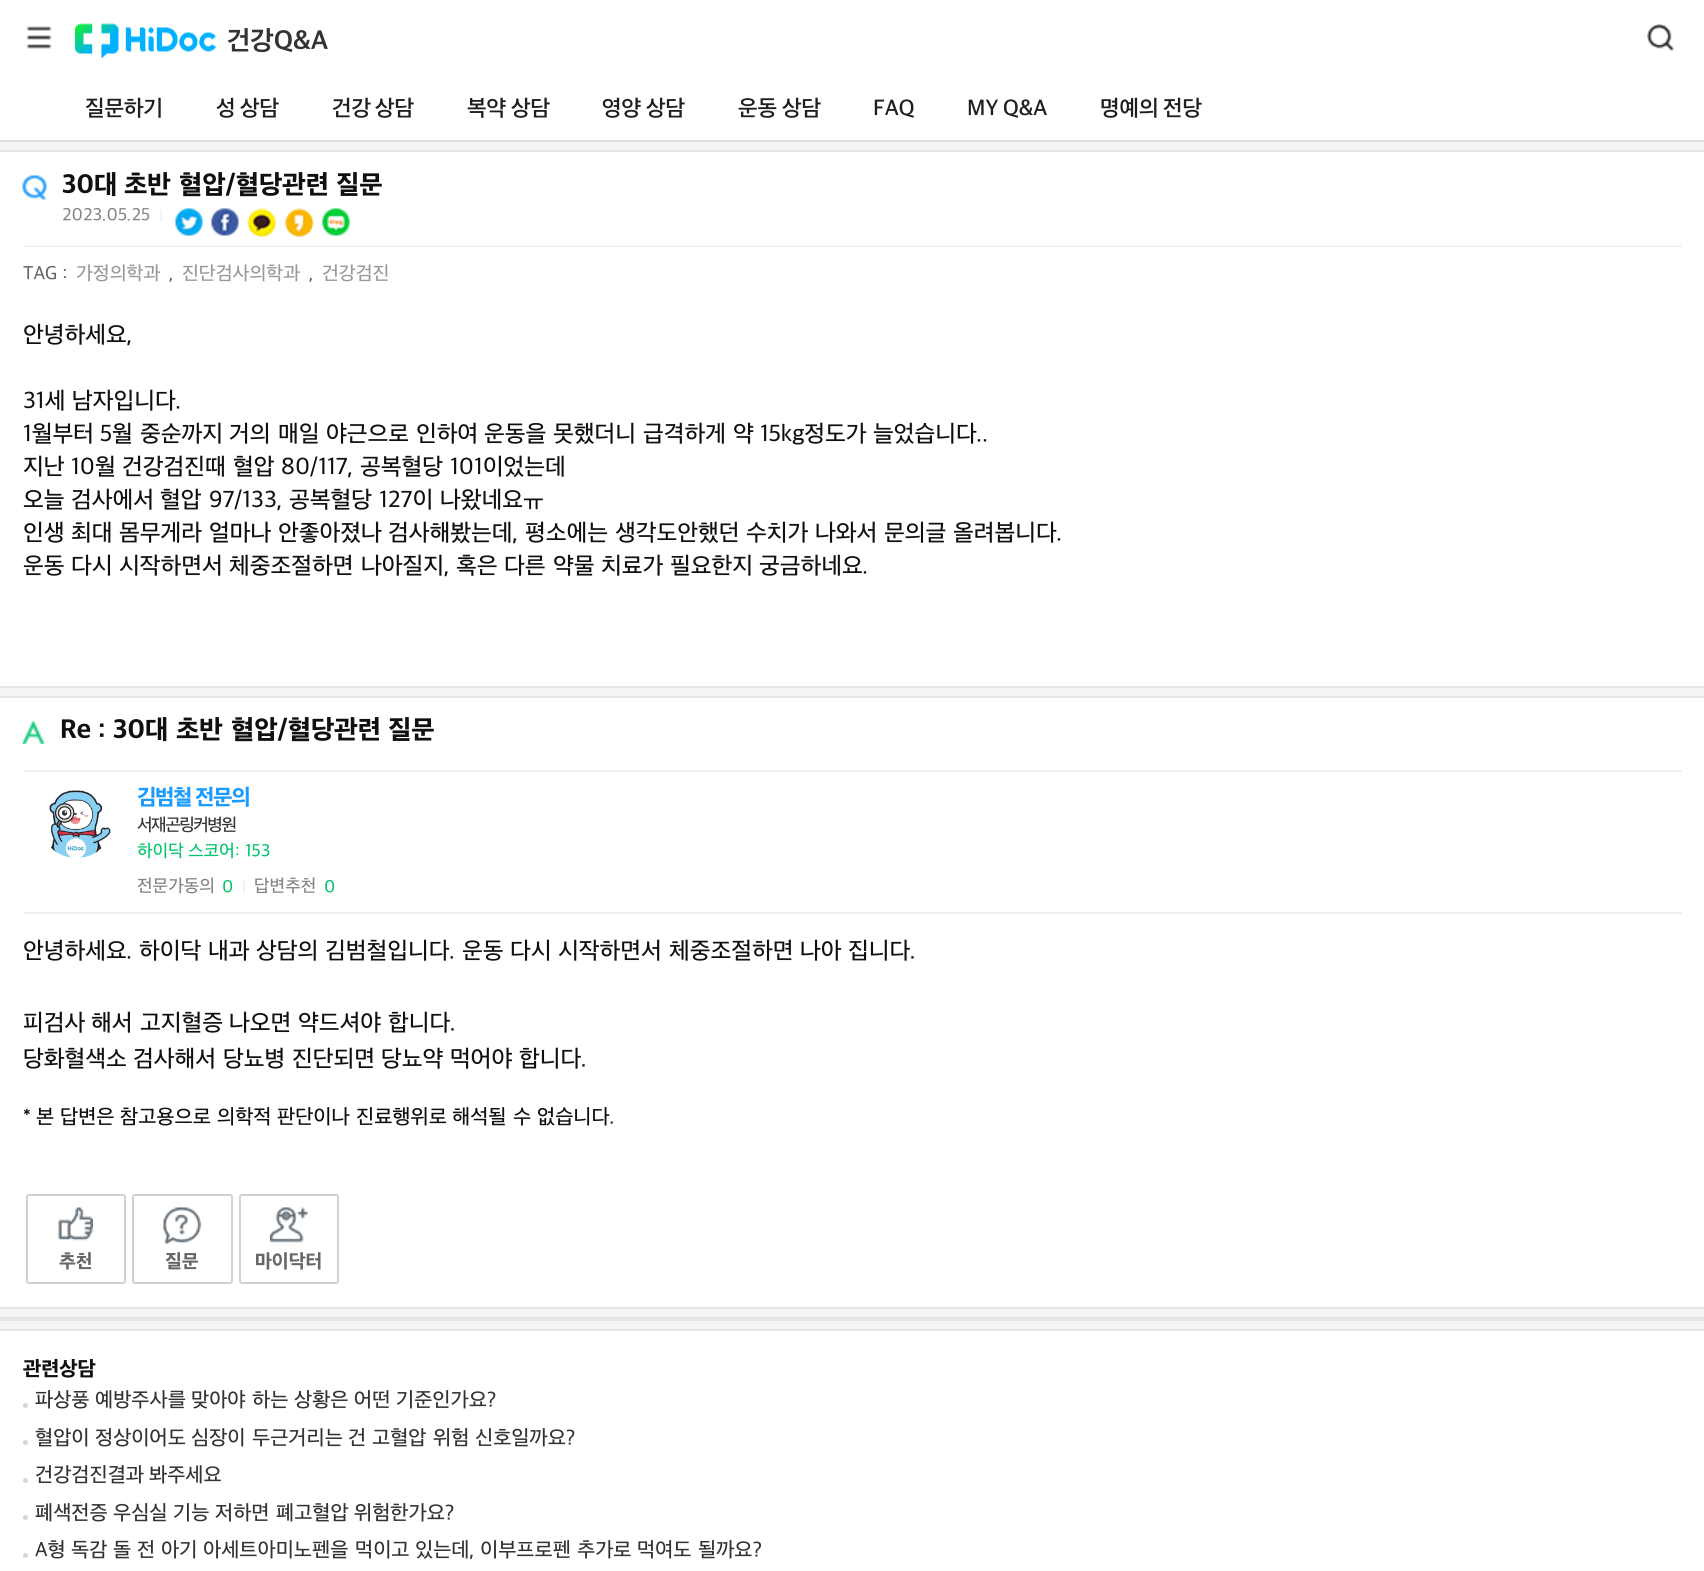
#include <cairo.h>
#include <math.h>
#include <stddef.h>

static cairo_t *ctx;

static void use_color(int r, int g, int b) {
    cairo_set_source_rgb(ctx, r / 255.0, g / 255.0, b / 255.0);
}

static void spaced_text(double x, double y, const char *s, double letter, double word) {
    cairo_move_to(ctx, x, y);
    while (*s) {
        char ch[5] = {0};
        int n = 0;
        do ch[n++] = *s++; while ((*s & 0xC0) == 0x80);
        cairo_show_text(ctx, ch);
        cairo_rel_move_to(ctx, letter + word * (*ch == ' '), 0);
    }
}

static void round_rect(double x, double y, double w, double h, double r) {
    cairo_new_sub_path(ctx);
    cairo_arc(ctx, x + w - r, y + h - r, r, 0, M_PI / 2);
    cairo_arc(ctx, x + r, y + h - r, r, M_PI / 2, M_PI);
    cairo_arc(ctx, x + r, y + r, r, M_PI, 1.5 * M_PI);
    cairo_arc(ctx, x + w - r, y + r, r, 1.5 * M_PI, 2 * M_PI);
    cairo_close_path(ctx);
}

static void picture(const char *path, double x, double y, double w, double h) {
    cairo_surface_t *image = cairo_image_surface_create_from_png(path);
    cairo_save(ctx);
    cairo_set_source_surface(ctx, image, x, y);
    cairo_rectangle(ctx, x, y, w, h);
    cairo_fill(ctx);
    cairo_restore(ctx);
    cairo_surface_destroy(image);
}

int main(void) {
    cairo_surface_t *surface = cairo_image_surface_create(CAIRO_FORMAT_RGB24, 1704, 1571);
    ctx = cairo_create(surface);
    cairo_font_options_t *options = cairo_font_options_create();
    cairo_font_options_set_hint_metrics(options, CAIRO_HINT_METRICS_OFF);
    cairo_font_options_set_hint_style(options, CAIRO_HINT_STYLE_NONE);
    cairo_set_font_options(ctx, options);
    cairo_set_miter_limit(ctx, 4);
    use_color(245, 245, 245);
    cairo_paint(ctx);
    use_color(255, 255, 255);
    cairo_rectangle(ctx, 0, 0, 1704, 140);
    cairo_fill(ctx);
    picture("img1.png", 26, 26, 26, 23);
    picture("img2.png", 75, 23, 141, 36);
    cairo_select_font_face(ctx, "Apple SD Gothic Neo", CAIRO_FONT_SLANT_NORMAL, CAIRO_FONT_WEIGHT_BOLD);
    cairo_set_font_size(ctx, 27);
    use_color(51, 51, 51);
    cairo_move_to(ctx, 227, 50);
    cairo_show_text(ctx, "건강Q&A");
    picture("img3.png", 1647, 24, 27, 27);
    use_color(218, 225, 230);
    cairo_rectangle(ctx, 0, 140, 1704, 2);
    cairo_fill(ctx);
    cairo_select_font_face(ctx, "Apple SD Gothic Neo SemiBold", CAIRO_FONT_SLANT_NORMAL, CAIRO_FONT_WEIGHT_NORMAL);
    cairo_set_font_size(ctx, 22.5);
    use_color(31, 31, 31);
    cairo_move_to(ctx, 85, 116);
    cairo_show_text(ctx, "질문하기");
    cairo_move_to(ctx, 216, 116);
    cairo_show_text(ctx, "성");
    cairo_move_to(ctx, 240, 116);
    cairo_show_text(ctx, "상담");
    cairo_move_to(ctx, 332, 116);
    cairo_show_text(ctx, "건강");
    cairo_move_to(ctx, 375, 116);
    cairo_show_text(ctx, "상담");
    cairo_move_to(ctx, 467, 116);
    cairo_show_text(ctx, "복약");
    cairo_move_to(ctx, 511, 116);
    cairo_show_text(ctx, "상담");
    cairo_move_to(ctx, 602, 116);
    cairo_show_text(ctx, "영양");
    cairo_move_to(ctx, 646, 116);
    cairo_show_text(ctx, "상담");
    cairo_move_to(ctx, 738, 116);
    cairo_show_text(ctx, "운동");
    cairo_move_to(ctx, 782, 116);
    cairo_show_text(ctx, "상담");
    cairo_move_to(ctx, 873, 116);
    cairo_show_text(ctx, "FAQ");
    cairo_move_to(ctx, 967, 116);
    cairo_show_text(ctx, "MY");
    cairo_move_to(ctx, 1003, 116);
    cairo_show_text(ctx, "Q&A");
    cairo_move_to(ctx, 1100, 116);
    cairo_show_text(ctx, "명예의");
    cairo_move_to(ctx, 1163, 116);
    cairo_show_text(ctx, "전당");
    use_color(255, 255, 255);
    cairo_rectangle(ctx, 0, 152, 1704, 534);
    cairo_fill(ctx);
    use_color(228, 228, 228);
    cairo_rectangle(ctx, 0, 150, 1704, 2);
    cairo_fill(ctx);
    cairo_rectangle(ctx, 0, 686, 1704, 2);
    cairo_fill(ctx);
    picture("img4.png", 22, 175, 25, 25);
    cairo_select_font_face(ctx, "Apple SD Gothic Neo ExtraBold", CAIRO_FONT_SLANT_NORMAL, CAIRO_FONT_WEIGHT_NORMAL);
    cairo_set_font_size(ctx, 27);
    use_color(16, 16, 16);
    cairo_move_to(ctx, 62, 194);
    cairo_show_text(ctx, "30대");
    cairo_move_to(ctx, 124, 194);
    cairo_show_text(ctx, "초반");
    cairo_move_to(ctx, 179, 194);
    cairo_show_text(ctx, "혈압/혈당관련");
    cairo_move_to(ctx, 336, 194);
    cairo_show_text(ctx, "질문");
    cairo_select_font_face(ctx, "Apple SD Gothic Neo Medium", CAIRO_FONT_SLANT_NORMAL, CAIRO_FONT_WEIGHT_NORMAL);
    cairo_set_font_size(ctx, 18);
    use_color(132, 132, 132);
    cairo_move_to(ctx, 62, 221);
    cairo_show_text(ctx, "2023.05.25");
    cairo_set_font_size(ctx, 15);
    use_color(232, 232, 232);
    cairo_move_to(ctx, 159, 221);
    cairo_show_text(ctx, "|");
    picture("img5.png", 175, 208, 28, 28);
    picture("img6.png", 211, 208, 28, 28);
    picture("img7.png", 247, 208, 29, 29);
    picture("img8.png", 285, 208, 29, 29);
    picture("img9.png", 322, 208, 28, 28);
    use_color(242, 242, 242);
    cairo_rectangle(ctx, 23, 245, 1659, 2);
    cairo_fill(ctx);
    cairo_set_font_size(ctx, 19.5);
    use_color(102, 102, 102);
    cairo_move_to(ctx, 23, 280);
    cairo_show_text(ctx, "TAG");
    cairo_move_to(ctx, 62, 280);
    cairo_show_text(ctx, ":");
    use_color(153, 153, 153);
    cairo_move_to(ctx, 76, 280);
    cairo_show_text(ctx, "가정의학과");
    cairo_move_to(ctx, 182, 280);
    cairo_show_text(ctx, "진단검사의학과");
    cairo_move_to(ctx, 322, 280);
    cairo_show_text(ctx, "건강검진");
    use_color(102, 102, 102);
    cairo_move_to(ctx, 169, 280);
    cairo_show_text(ctx, ",");
    cairo_move_to(ctx, 309, 280);
    cairo_show_text(ctx, ",");
    cairo_set_font_size(ctx, 24);
    use_color(16, 16, 16);
    cairo_move_to(ctx, 23, 343);
    cairo_show_text(ctx, "안녕하세요,");
    cairo_move_to(ctx, 23, 409);
    cairo_show_text(ctx, "31세");
    cairo_move_to(ctx, 72, 409);
    cairo_show_text(ctx, "남자입니다.");
    cairo_move_to(ctx, 23, 442);
    cairo_show_text(ctx, "1월부터");
    cairo_move_to(ctx, 100, 442);
    cairo_show_text(ctx, "5월");
    cairo_move_to(ctx, 140, 442);
    cairo_show_text(ctx, "중순까지");
    cairo_move_to(ctx, 229, 442);
    cairo_show_text(ctx, "거의");
    cairo_move_to(ctx, 278, 442);
    cairo_show_text(ctx, "매일");
    cairo_move_to(ctx, 326, 442);
    cairo_show_text(ctx, "야근으로");
    cairo_move_to(ctx, 416, 442);
    cairo_show_text(ctx, "인하여");
    cairo_move_to(ctx, 484, 442);
    cairo_show_text(ctx, "운동을");
    cairo_move_to(ctx, 553, 442);
    cairo_show_text(ctx, "못했더니");
    cairo_move_to(ctx, 643, 442);
    cairo_show_text(ctx, "급격하게");
    cairo_move_to(ctx, 733, 442);
    cairo_show_text(ctx, "약");
    cairo_move_to(ctx, 760, 442);
    cairo_show_text(ctx, "15kg정도가");
    cairo_move_to(ctx, 873, 442);
    cairo_show_text(ctx, "늘었습니다..");
    cairo_move_to(ctx, 23, 475);
    cairo_show_text(ctx, "지난");
    cairo_move_to(ctx, 71, 475);
    cairo_show_text(ctx, "10월");
    cairo_move_to(ctx, 122, 475);
    cairo_show_text(ctx, "건강검진때");
    cairo_move_to(ctx, 233, 475);
    cairo_show_text(ctx, "혈압");
    cairo_move_to(ctx, 281, 475);
    cairo_show_text(ctx, "80/117,");
    cairo_move_to(ctx, 360, 475);
    cairo_show_text(ctx, "공복혈당");
    cairo_move_to(ctx, 450, 475);
    cairo_show_text(ctx, "101이었는데");
    cairo_move_to(ctx, 23, 508);
    cairo_show_text(ctx, "오늘");
    cairo_move_to(ctx, 71, 508);
    cairo_show_text(ctx, "검사에서");
    cairo_move_to(ctx, 160, 508);
    cairo_show_text(ctx, "혈압");
    cairo_move_to(ctx, 209, 508);
    cairo_show_text(ctx, "97/133,");
    cairo_move_to(ctx, 289, 508);
    cairo_show_text(ctx, "공복혈당");
    cairo_move_to(ctx, 379, 508);
    cairo_show_text(ctx, "127이");
    cairo_move_to(ctx, 440, 508);
    cairo_show_text(ctx, "나왔네요ㅠ");
    cairo_move_to(ctx, 23, 541);
    cairo_show_text(ctx, "인생");
    cairo_move_to(ctx, 71, 541);
    cairo_show_text(ctx, "최대");
    cairo_move_to(ctx, 119, 541);
    cairo_show_text(ctx, "몸무게라");
    cairo_move_to(ctx, 209, 541);
    cairo_show_text(ctx, "얼마나");
    cairo_move_to(ctx, 278, 541);
    cairo_show_text(ctx, "안좋아졌나");
    cairo_move_to(ctx, 388, 541);
    cairo_show_text(ctx, "검사해봤는데,");
    cairo_move_to(ctx, 525, 541);
    cairo_show_text(ctx, "평소에는");
    cairo_move_to(ctx, 615, 541);
    cairo_show_text(ctx, "생각도안했던");
    cairo_move_to(ctx, 746, 541);
    cairo_show_text(ctx, "수치가");
    cairo_move_to(ctx, 815, 541);
    cairo_show_text(ctx, "나와서");
    cairo_move_to(ctx, 884, 541);
    cairo_show_text(ctx, "문의글");
    cairo_move_to(ctx, 953, 541);
    cairo_show_text(ctx, "올려봅니다.");
    cairo_move_to(ctx, 23, 574);
    cairo_show_text(ctx, "운동");
    cairo_move_to(ctx, 71, 574);
    cairo_show_text(ctx, "다시");
    cairo_move_to(ctx, 119, 574);
    cairo_show_text(ctx, "시작하면서");
    cairo_move_to(ctx, 229, 574);
    cairo_show_text(ctx, "체중조절하면");
    cairo_move_to(ctx, 361, 574);
    cairo_show_text(ctx, "나아질지,");
    cairo_move_to(ctx, 456, 574);
    cairo_show_text(ctx, "혹은");
    cairo_move_to(ctx, 504, 574);
    cairo_show_text(ctx, "다른");
    cairo_move_to(ctx, 553, 574);
    cairo_show_text(ctx, "약물");
    cairo_move_to(ctx, 601, 574);
    cairo_show_text(ctx, "치료가");
    cairo_move_to(ctx, 670, 574);
    cairo_show_text(ctx, "필요한지");
    cairo_move_to(ctx, 759, 574);
    cairo_show_text(ctx, "궁금하네요.");
    use_color(255, 255, 255);
    cairo_rectangle(ctx, 0, 698, 1704, 609);
    cairo_fill(ctx);
    use_color(228, 228, 228);
    cairo_rectangle(ctx, 0, 696, 1704, 2);
    cairo_fill(ctx);
    cairo_rectangle(ctx, 0, 1307, 1704, 2);
    cairo_fill(ctx);
    picture("img10.png", 22, 721, 23, 23);
    cairo_select_font_face(ctx, "Apple SD Gothic Neo ExtraBold", CAIRO_FONT_SLANT_NORMAL, CAIRO_FONT_WEIGHT_NORMAL);
    cairo_set_font_size(ctx, 27);
    use_color(16, 16, 16);
    cairo_move_to(ctx, 60, 739);
    cairo_show_text(ctx, "Re");
    cairo_move_to(ctx, 98, 739);
    cairo_show_text(ctx, ":");
    cairo_move_to(ctx, 113, 739);
    cairo_show_text(ctx, "30대");
    cairo_move_to(ctx, 176, 739);
    cairo_show_text(ctx, "초반");
    cairo_move_to(ctx, 231, 739);
    cairo_show_text(ctx, "혈압/혈당관련");
    cairo_move_to(ctx, 388, 739);
    cairo_show_text(ctx, "질문");
    use_color(242, 242, 242);
    cairo_rectangle(ctx, 23, 770, 1659, 2);
    cairo_fill(ctx);
    picture("img11.png", 49, 790, 62, 68);
    cairo_set_font_size(ctx, 22.5);
    use_color(27, 155, 254);
    spaced_text(137, 805, "김범철", -1.5, 0);
    spaced_text(195, 805, "전문의", -1.5, 0);
    cairo_select_font_face(ctx, "Apple SD Gothic Neo Medium", CAIRO_FONT_SLANT_NORMAL, CAIRO_FONT_WEIGHT_NORMAL);
    cairo_set_font_size(ctx, 18);
    use_color(51, 51, 51);
    spaced_text(137, 831, "서재곤링커병원", -1.5, 0);
    use_color(0, 197, 107);
    cairo_move_to(ctx, 137, 857);
    cairo_show_text(ctx, "하이닥");
    cairo_move_to(ctx, 188, 857);
    cairo_show_text(ctx, "스코어:");
    cairo_move_to(ctx, 245, 857);
    cairo_show_text(ctx, "153");
    use_color(132, 132, 132);
    cairo_move_to(ctx, 137, 892);
    cairo_show_text(ctx, "전문가동의");
    use_color(0, 197, 107);
    cairo_move_to(ctx, 222, 893);
    cairo_show_text(ctx, "0");
    cairo_set_font_size(ctx, 15);
    use_color(232, 232, 232);
    cairo_move_to(ctx, 242, 892);
    cairo_show_text(ctx, "|");
    cairo_set_font_size(ctx, 18);
    use_color(132, 132, 132);
    cairo_move_to(ctx, 254, 892);
    cairo_show_text(ctx, "답변추천");
    use_color(0, 197, 107);
    cairo_move_to(ctx, 324, 893);
    cairo_show_text(ctx, "0");
    use_color(242, 242, 242);
    cairo_rectangle(ctx, 23, 912, 1659, 2);
    cairo_fill(ctx);
    cairo_set_font_size(ctx, 24);
    use_color(16, 16, 16);
    cairo_move_to(ctx, 23, 959);
    cairo_show_text(ctx, "안녕하세요.");
    cairo_move_to(ctx, 139, 959);
    cairo_show_text(ctx, "하이닥");
    cairo_move_to(ctx, 208, 959);
    cairo_show_text(ctx, "내과");
    cairo_move_to(ctx, 256, 959);
    cairo_show_text(ctx, "상담의");
    cairo_move_to(ctx, 325, 959);
    cairo_show_text(ctx, "김범철입니다.");
    cairo_move_to(ctx, 462, 959);
    cairo_show_text(ctx, "운동");
    cairo_move_to(ctx, 510, 959);
    cairo_show_text(ctx, "다시");
    cairo_move_to(ctx, 558, 959);
    cairo_show_text(ctx, "시작하면서");
    cairo_move_to(ctx, 669, 959);
    cairo_show_text(ctx, "체중조절하면");
    cairo_move_to(ctx, 800, 959);
    cairo_show_text(ctx, "나아");
    cairo_move_to(ctx, 848, 959);
    cairo_show_text(ctx, "집니다.");
    cairo_move_to(ctx, 23, 1031);
    cairo_show_text(ctx, "피검사");
    cairo_move_to(ctx, 91, 1031);
    cairo_show_text(ctx, "해서");
    cairo_move_to(ctx, 140, 1031);
    cairo_show_text(ctx, "고지혈증");
    cairo_move_to(ctx, 229, 1031);
    cairo_show_text(ctx, "나오면");
    cairo_move_to(ctx, 298, 1031);
    cairo_show_text(ctx, "약드셔야");
    cairo_move_to(ctx, 388, 1031);
    cairo_show_text(ctx, "합니다.");
    cairo_move_to(ctx, 23, 1067);
    cairo_show_text(ctx, "당화혈색소");
    cairo_move_to(ctx, 133, 1067);
    cairo_show_text(ctx, "검사해서");
    cairo_move_to(ctx, 223, 1067);
    cairo_show_text(ctx, "당뇨병");
    cairo_move_to(ctx, 292, 1067);
    cairo_show_text(ctx, "진단되면");
    cairo_move_to(ctx, 381, 1067);
    cairo_show_text(ctx, "당뇨약");
    cairo_move_to(ctx, 450, 1067);
    cairo_show_text(ctx, "먹어야");
    cairo_move_to(ctx, 519, 1067);
    cairo_show_text(ctx, "합니다.");
    cairo_set_font_size(ctx, 21);
    cairo_move_to(ctx, 23, 1124);
    cairo_show_text(ctx, "*");
    cairo_move_to(ctx, 36, 1124);
    cairo_show_text(ctx, "본");
    cairo_move_to(ctx, 60, 1124);
    cairo_show_text(ctx, "답변은");
    cairo_move_to(ctx, 120, 1124);
    cairo_show_text(ctx, "참고용으로");
    cairo_move_to(ctx, 217, 1124);
    cairo_show_text(ctx, "의학적");
    cairo_move_to(ctx, 277, 1124);
    cairo_show_text(ctx, "판단이나");
    cairo_move_to(ctx, 356, 1124);
    cairo_show_text(ctx, "진료행위로");
    cairo_move_to(ctx, 452, 1124);
    cairo_show_text(ctx, "해석될");
    cairo_move_to(ctx, 513, 1124);
    cairo_show_text(ctx, "수");
    cairo_move_to(ctx, 537, 1124);
    cairo_show_text(ctx, "없습니다.");
    round_rect(27, 1195, 98, 88, 2);
    use_color(210, 210, 210);
    cairo_stroke(ctx);
    picture("img12.png", 58, 1207, 35, 34);
    cairo_select_font_face(ctx, "Apple SD Gothic Neo ExtraBold", CAIRO_FONT_SLANT_NORMAL, CAIRO_FONT_WEIGHT_NORMAL);
    cairo_set_font_size(ctx, 19.5);
    use_color(102, 102, 102);
    cairo_move_to(ctx, 59, 1268);
    cairo_show_text(ctx, "추천");
    round_rect(133, 1195, 99, 88, 2);
    use_color(210, 210, 210);
    cairo_stroke(ctx);
    picture("img13.png", 163, 1207, 38, 37);
    use_color(102, 102, 102);
    cairo_move_to(ctx, 165, 1268);
    cairo_show_text(ctx, "질문");
    round_rect(240, 1195, 98, 88, 2);
    use_color(210, 210, 210);
    cairo_stroke(ctx);
    picture("img14.png", 270, 1207, 38, 36);
    use_color(102, 102, 102);
    cairo_move_to(ctx, 255, 1268);
    cairo_show_text(ctx, "마이닥터");
    use_color(228, 228, 228);
    cairo_rectangle(ctx, 0, 1317, 1704, 4);
    cairo_fill(ctx);
    use_color(255, 255, 255);
    cairo_rectangle(ctx, 0, 1331, 1704, 240);
    cairo_fill(ctx);
    use_color(228, 228, 228);
    cairo_rectangle(ctx, 0, 1329, 1704, 2);
    cairo_fill(ctx);
    cairo_set_font_size(ctx, 21);
    use_color(16, 16, 16);
    cairo_move_to(ctx, 23, 1376);
    cairo_show_text(ctx, "관련상담");
    use_color(214, 214, 214);
    cairo_new_path(ctx);
    cairo_arc(ctx, 25.5, 1405.5, 2.5, 0, 2 * M_PI);
    cairo_fill(ctx);
    cairo_select_font_face(ctx, "Apple SD Gothic Neo Medium", CAIRO_FONT_SLANT_NORMAL, CAIRO_FONT_WEIGHT_NORMAL);
    use_color(51, 51, 51);
    cairo_move_to(ctx, 35, 1407);
    cairo_show_text(ctx, "파상풍");
    cairo_move_to(ctx, 95, 1407);
    cairo_show_text(ctx, "예방주사를");
    cairo_move_to(ctx, 191, 1407);
    cairo_show_text(ctx, "맞아야");
    cairo_move_to(ctx, 252, 1407);
    cairo_show_text(ctx, "하는");
    cairo_move_to(ctx, 294, 1407);
    cairo_show_text(ctx, "상황은");
    cairo_move_to(ctx, 354, 1407);
    cairo_show_text(ctx, "어떤");
    cairo_move_to(ctx, 396, 1407);
    cairo_show_text(ctx, "기준인가요?");
    use_color(214, 214, 214);
    cairo_new_path(ctx);
    cairo_arc(ctx, 25.5, 1442.5, 2.5, 0, 2 * M_PI);
    cairo_fill(ctx);
    use_color(51, 51, 51);
    cairo_move_to(ctx, 35, 1445);
    cairo_show_text(ctx, "혈압이");
    cairo_move_to(ctx, 95, 1445);
    cairo_show_text(ctx, "정상이어도");
    cairo_move_to(ctx, 191, 1445);
    cairo_show_text(ctx, "심장이");
    cairo_move_to(ctx, 252, 1445);
    cairo_show_text(ctx, "두근거리는");
    cairo_move_to(ctx, 348, 1445);
    cairo_show_text(ctx, "건");
    cairo_move_to(ctx, 372, 1445);
    cairo_show_text(ctx, "고혈압");
    cairo_move_to(ctx, 433, 1445);
    cairo_show_text(ctx, "위험");
    cairo_move_to(ctx, 475, 1445);
    cairo_show_text(ctx, "신호일까요?");
    use_color(214, 214, 214);
    cairo_new_path(ctx);
    cairo_arc(ctx, 25.5, 1480.5, 2.5, 0, 2 * M_PI);
    cairo_fill(ctx);
    use_color(51, 51, 51);
    cairo_move_to(ctx, 35, 1482);
    cairo_show_text(ctx, "건강검진결과");
    cairo_move_to(ctx, 149, 1482);
    cairo_show_text(ctx, "봐주세요");
    use_color(214, 214, 214);
    cairo_new_path(ctx);
    cairo_arc(ctx, 25.5, 1517.5, 2.5, 0, 2 * M_PI);
    cairo_fill(ctx);
    use_color(51, 51, 51);
    cairo_move_to(ctx, 35, 1520);
    cairo_show_text(ctx, "폐색전증");
    cairo_move_to(ctx, 113, 1520);
    cairo_show_text(ctx, "우심실");
    cairo_move_to(ctx, 173, 1520);
    cairo_show_text(ctx, "기능");
    cairo_move_to(ctx, 215, 1520);
    cairo_show_text(ctx, "저하면");
    cairo_move_to(ctx, 276, 1520);
    cairo_show_text(ctx, "폐고혈압");
    cairo_move_to(ctx, 354, 1520);
    cairo_show_text(ctx, "위험한가요?");
    use_color(214, 214, 214);
    cairo_new_path(ctx);
    cairo_arc(ctx, 25.5, 1555.5, 2.5, 0, 2 * M_PI);
    cairo_fill(ctx);
    use_color(51, 51, 51);
    cairo_move_to(ctx, 35, 1557);
    cairo_show_text(ctx, "A형");
    cairo_move_to(ctx, 71, 1557);
    cairo_show_text(ctx, "독감");
    cairo_move_to(ctx, 113, 1557);
    cairo_show_text(ctx, "돌");
    cairo_move_to(ctx, 137, 1557);
    cairo_show_text(ctx, "전");
    cairo_move_to(ctx, 161, 1557);
    cairo_show_text(ctx, "아기");
    cairo_move_to(ctx, 203, 1557);
    cairo_show_text(ctx, "아세트아미노펜을");
    cairo_move_to(ctx, 355, 1557);
    cairo_show_text(ctx, "먹이고");
    cairo_move_to(ctx, 415, 1557);
    cairo_show_text(ctx, "있는데,");
    cairo_move_to(ctx, 480, 1557);
    cairo_show_text(ctx, "이부프로펜");
    cairo_move_to(ctx, 577, 1557);
    cairo_show_text(ctx, "추가로");
    cairo_move_to(ctx, 637, 1557);
    cairo_show_text(ctx, "먹여도");
    cairo_move_to(ctx, 698, 1557);
    cairo_show_text(ctx, "될까요?");
    cairo_surface_write_to_png(surface, "result.png");
    cairo_font_options_destroy(options);
    cairo_destroy(ctx);
    cairo_surface_destroy(surface);
    return 0;
}
